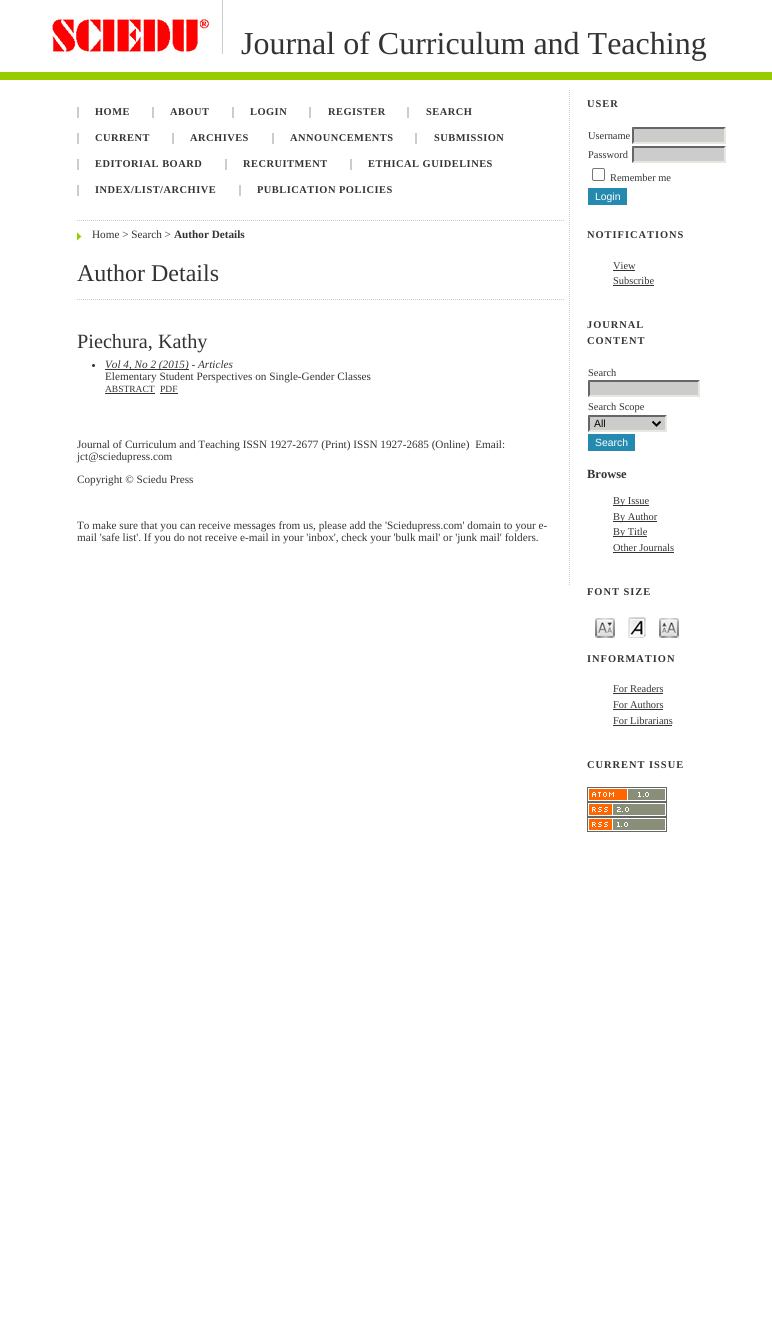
#include <cairo.h>
#include <math.h>
#include <stddef.h>

static cairo_t *ctx;

static void use_color(int r, int g, int b) {
    cairo_set_source_rgb(ctx, r / 255.0, g / 255.0, b / 255.0);
}

static void spaced_text(double x, double y, const char *s, double letter, double word) {
    cairo_move_to(ctx, x, y);
    while (*s) {
        char ch[5] = {0};
        int n = 0;
        do ch[n++] = *s++; while ((*s & 0xC0) == 0x80);
        cairo_show_text(ctx, ch);
        cairo_rel_move_to(ctx, letter + word * (*ch == ' '), 0);
    }
}

static void round_rect(double x, double y, double w, double h, double r) {
    cairo_new_sub_path(ctx);
    cairo_arc(ctx, x + w - r, y + h - r, r, 0, M_PI / 2);
    cairo_arc(ctx, x + r, y + h - r, r, M_PI / 2, M_PI);
    cairo_arc(ctx, x + r, y + r, r, M_PI, 1.5 * M_PI);
    cairo_arc(ctx, x + w - r, y + r, r, 1.5 * M_PI, 2 * M_PI);
    cairo_close_path(ctx);
}

static void picture(const char *path, double x, double y, double w, double h) {
    cairo_surface_t *image = cairo_image_surface_create_from_png(path);
    cairo_save(ctx);
    cairo_set_source_surface(ctx, image, x, y);
    cairo_rectangle(ctx, x, y, w, h);
    cairo_fill(ctx);
    cairo_restore(ctx);
    cairo_surface_destroy(image);
}

int main(void) {
    cairo_surface_t *surface = cairo_image_surface_create(CAIRO_FORMAT_RGB24, 772, 1318);
    ctx = cairo_create(surface);
    cairo_font_options_t *options = cairo_font_options_create();
    cairo_font_options_set_hint_metrics(options, CAIRO_HINT_METRICS_OFF);
    cairo_font_options_set_hint_style(options, CAIRO_HINT_STYLE_NONE);
    cairo_set_font_options(ctx, options);
    cairo_set_miter_limit(ctx, 4);
    use_color(255, 255, 255);
    cairo_paint(ctx);
    use_color(153, 204, 0);
    cairo_rectangle(ctx, 0, 72, 772, 8);
    cairo_fill(ctx);
    picture("img1.png", 50, 16, 160, 38);
    use_color(204, 204, 204);
    cairo_rectangle(ctx, 222, 0, 1, 54);
    cairo_fill(ctx);
    cairo_select_font_face(ctx, "Liberation Serif", CAIRO_FONT_SLANT_NORMAL, CAIRO_FONT_WEIGHT_NORMAL);
    cairo_set_font_size(ctx, 32);
    use_color(51, 51, 51);
    cairo_move_to(ctx, 241, 54);
    cairo_show_text(ctx, "Journal of Curriculum and Teaching");
    cairo_new_path(ctx);
    cairo_move_to(ctx, 569.5, 90);
    cairo_line_to(ctx, 569.5, 586);
    use_color(204, 204, 204);
    cairo_set_line_width(ctx, 1);
    cairo_set_dash(ctx, (double[]){1, 1}, 2, 0);
    cairo_stroke(ctx);
    cairo_select_font_face(ctx, "Liberation Serif", CAIRO_FONT_SLANT_NORMAL, CAIRO_FONT_WEIGHT_BOLD);
    cairo_set_font_size(ctx, 10.4);
    use_color(51, 51, 51);
    spaced_text(95, 115, "HOME", 0.5, 0);
    use_color(204, 204, 204);
    cairo_rectangle(ctx, 77, 107, 2, 11);
    cairo_fill(ctx);
    use_color(51, 51, 51);
    spaced_text(170, 115, "ABOUT", 0.5, 0);
    use_color(204, 204, 204);
    cairo_rectangle(ctx, 152, 107, 2, 11);
    cairo_fill(ctx);
    use_color(51, 51, 51);
    spaced_text(250, 115, "LOGIN", 0.5, 0);
    use_color(204, 204, 204);
    cairo_rectangle(ctx, 232, 107, 2, 11);
    cairo_fill(ctx);
    use_color(51, 51, 51);
    spaced_text(328, 115, "REGISTER", 0.5, 0);
    use_color(204, 204, 204);
    cairo_rectangle(ctx, 309, 107, 2, 11);
    cairo_fill(ctx);
    use_color(51, 51, 51);
    spaced_text(426, 115, "SEARCH", 0.5, 0);
    use_color(204, 204, 204);
    cairo_rectangle(ctx, 407, 107, 2, 11);
    cairo_fill(ctx);
    use_color(51, 51, 51);
    spaced_text(95, 141, "CURRENT", 0.5, 0);
    use_color(204, 204, 204);
    cairo_rectangle(ctx, 77, 133, 2, 11);
    cairo_fill(ctx);
    use_color(51, 51, 51);
    spaced_text(190, 141, "ARCHIVES", 0.5, 0);
    use_color(204, 204, 204);
    cairo_rectangle(ctx, 172, 133, 2, 11);
    cairo_fill(ctx);
    use_color(51, 51, 51);
    spaced_text(290, 141, "ANNOUNCEMENTS", 0.5, 0);
    use_color(204, 204, 204);
    cairo_rectangle(ctx, 272, 133, 2, 11);
    cairo_fill(ctx);
    use_color(51, 51, 51);
    spaced_text(434, 141, "SUBMISSION", 0.5, 0);
    use_color(204, 204, 204);
    cairo_rectangle(ctx, 415, 133, 2, 11);
    cairo_fill(ctx);
    use_color(51, 51, 51);
    spaced_text(95, 167, "EDITORIAL BOARD", 0.5, 0);
    use_color(204, 204, 204);
    cairo_rectangle(ctx, 77, 159, 2, 11);
    cairo_fill(ctx);
    use_color(51, 51, 51);
    spaced_text(243, 167, "RECRUITMENT", 0.5, 0);
    use_color(204, 204, 204);
    cairo_rectangle(ctx, 225, 159, 2, 11);
    cairo_fill(ctx);
    use_color(51, 51, 51);
    spaced_text(368, 167, "ETHICAL GUIDELINES", 0.5, 0);
    use_color(204, 204, 204);
    cairo_rectangle(ctx, 350, 159, 2, 11);
    cairo_fill(ctx);
    use_color(51, 51, 51);
    spaced_text(95, 193, "INDEX/LIST/ARCHIVE", 0.5, 0);
    use_color(204, 204, 204);
    cairo_rectangle(ctx, 77, 185, 2, 11);
    cairo_fill(ctx);
    use_color(51, 51, 51);
    spaced_text(257, 193, "PUBLICATION POLICIES", 0.5, 0);
    use_color(204, 204, 204);
    cairo_rectangle(ctx, 239, 185, 2, 11);
    cairo_fill(ctx);
    picture("img2.png", 77, 232, 5, 9);
    cairo_new_path(ctx);
    cairo_move_to(ctx, 77, 220.5);
    cairo_line_to(ctx, 564, 220.5);
    cairo_stroke(ctx);
    cairo_select_font_face(ctx, "Liberation Serif", CAIRO_FONT_SLANT_NORMAL, CAIRO_FONT_WEIGHT_NORMAL);
    cairo_set_font_size(ctx, 11.2);
    use_color(51, 51, 51);
    cairo_move_to(ctx, 92, 238);
    cairo_show_text(ctx, "Home > Search >");
    cairo_select_font_face(ctx, "Liberation Serif", CAIRO_FONT_SLANT_NORMAL, CAIRO_FONT_WEIGHT_BOLD);
    cairo_move_to(ctx, 174, 238);
    cairo_show_text(ctx, "Author Details");
    cairo_select_font_face(ctx, "Liberation Serif", CAIRO_FONT_SLANT_NORMAL, CAIRO_FONT_WEIGHT_NORMAL);
    cairo_set_font_size(ctx, 24);
    cairo_move_to(ctx, 77, 281);
    cairo_show_text(ctx, "Author Details");
    cairo_new_path(ctx);
    cairo_move_to(ctx, 77, 299.5);
    cairo_line_to(ctx, 564, 299.5);
    use_color(204, 204, 204);
    cairo_stroke(ctx);
    cairo_set_font_size(ctx, 20.25);
    use_color(51, 51, 51);
    cairo_move_to(ctx, 77, 348);
    cairo_show_text(ctx, "Piechura, Kathy");
    cairo_new_path(ctx);
    cairo_arc(ctx, 93.5, 365.5, 1.5, 0, 2 * M_PI);
    cairo_fill(ctx);
    cairo_rectangle(ctx, 105, 369, 84, 1);
    cairo_fill(ctx);
    cairo_select_font_face(ctx, "Liberation Serif", CAIRO_FONT_SLANT_ITALIC, CAIRO_FONT_WEIGHT_NORMAL);
    cairo_set_font_size(ctx, 11.2);
    cairo_move_to(ctx, 105, 368);
    cairo_show_text(ctx, "Vol 4, No 2 (2015) - Articles");
    cairo_select_font_face(ctx, "Liberation Serif", CAIRO_FONT_SLANT_NORMAL, CAIRO_FONT_WEIGHT_NORMAL);
    cairo_move_to(ctx, 105, 380);
    cairo_show_text(ctx, "Elementary Student Perspectives on Single-Gender Classes");
    cairo_set_font_size(ctx, 9.5);
    cairo_move_to(ctx, 105, 392);
    cairo_show_text(ctx, "ABSTRACT");
    cairo_rectangle(ctx, 105, 393, 50, 1);
    cairo_fill(ctx);
    cairo_move_to(ctx, 160, 392);
    cairo_show_text(ctx, "PDF");
    cairo_rectangle(ctx, 160, 393, 18, 1);
    cairo_fill(ctx);
    cairo_set_font_size(ctx, 11.2);
    cairo_move_to(ctx, 77, 448);
    cairo_show_text(ctx, "Journal of Curriculum and Teaching ISSN 1927-2677 (Print) ISSN 1927-2685 (Online)  Email:");
    cairo_move_to(ctx, 77, 460);
    cairo_show_text(ctx, "jct@sciedupress.com");
    cairo_move_to(ctx, 77, 483);
    cairo_show_text(ctx, "Copyright © Sciedu Press");
    cairo_move_to(ctx, 77, 529);
    cairo_show_text(ctx, "To make sure that you can receive messages from us, please add the 'Sciedupress.com' domain to your e-");
    cairo_move_to(ctx, 77, 541);
    cairo_show_text(ctx, "mail 'safe list'. If you do not receive e-mail in your 'inbox', check your 'bulk mail' or 'junk mail' folders.");
    cairo_select_font_face(ctx, "Liberation Serif", CAIRO_FONT_SLANT_NORMAL, CAIRO_FONT_WEIGHT_BOLD);
    cairo_set_font_size(ctx, 10.4);
    spaced_text(587, 107, "USER", 1, 0);
    cairo_select_font_face(ctx, "Liberation Serif", CAIRO_FONT_SLANT_NORMAL, CAIRO_FONT_WEIGHT_NORMAL);
    cairo_move_to(ctx, 588, 139);
    cairo_show_text(ctx, "Username");
    use_color(204, 204, 204);
    cairo_rectangle(ctx, 632, 127, 94, 17);
    cairo_fill(ctx);
    use_color(102, 102, 102);
    cairo_new_path(ctx);
    cairo_move_to(ctx, 632, 127);
    cairo_line_to(ctx, 726, 127);
    cairo_line_to(ctx, 724, 129);
    cairo_line_to(ctx, 634, 129);
    cairo_close_path(ctx);
    cairo_fill(ctx);
    use_color(232, 232, 225);
    cairo_new_path(ctx);
    cairo_move_to(ctx, 726, 127);
    cairo_line_to(ctx, 726, 144);
    cairo_line_to(ctx, 724, 142);
    cairo_line_to(ctx, 724, 129);
    cairo_close_path(ctx);
    cairo_fill(ctx);
    cairo_new_path(ctx);
    cairo_move_to(ctx, 726, 144);
    cairo_line_to(ctx, 632, 144);
    cairo_line_to(ctx, 634, 142);
    cairo_line_to(ctx, 724, 142);
    cairo_close_path(ctx);
    cairo_fill(ctx);
    use_color(102, 102, 102);
    cairo_new_path(ctx);
    cairo_move_to(ctx, 632, 144);
    cairo_line_to(ctx, 632, 127);
    cairo_line_to(ctx, 634, 129);
    cairo_line_to(ctx, 634, 142);
    cairo_close_path(ctx);
    cairo_fill(ctx);
    use_color(51, 51, 51);
    cairo_move_to(ctx, 588, 158);
    cairo_show_text(ctx, "Password");
    use_color(204, 204, 204);
    cairo_rectangle(ctx, 632, 146, 94, 17);
    cairo_fill(ctx);
    use_color(102, 102, 102);
    cairo_new_path(ctx);
    cairo_move_to(ctx, 632, 146);
    cairo_line_to(ctx, 726, 146);
    cairo_line_to(ctx, 724, 148);
    cairo_line_to(ctx, 634, 148);
    cairo_close_path(ctx);
    cairo_fill(ctx);
    use_color(232, 232, 225);
    cairo_new_path(ctx);
    cairo_move_to(ctx, 726, 146);
    cairo_line_to(ctx, 726, 163);
    cairo_line_to(ctx, 724, 161);
    cairo_line_to(ctx, 724, 148);
    cairo_close_path(ctx);
    cairo_fill(ctx);
    cairo_new_path(ctx);
    cairo_move_to(ctx, 726, 163);
    cairo_line_to(ctx, 632, 163);
    cairo_line_to(ctx, 634, 161);
    cairo_line_to(ctx, 724, 161);
    cairo_close_path(ctx);
    cairo_fill(ctx);
    use_color(102, 102, 102);
    cairo_new_path(ctx);
    cairo_move_to(ctx, 632, 163);
    cairo_line_to(ctx, 632, 146);
    cairo_line_to(ctx, 634, 148);
    cairo_line_to(ctx, 634, 161);
    cairo_close_path(ctx);
    cairo_fill(ctx);
    round_rect(592.5, 168.5, 12, 12, 1.5);
    use_color(118, 118, 118);
    cairo_set_dash(ctx, NULL, 0, 0);
    cairo_stroke(ctx);
    use_color(51, 51, 51);
    cairo_move_to(ctx, 610, 181);
    cairo_show_text(ctx, "Remember me");
    use_color(37, 138, 175);
    cairo_rectangle(ctx, 588, 188, 39, 17);
    cairo_fill(ctx);
    cairo_select_font_face(ctx, "Liberation Sans", CAIRO_FONT_SLANT_NORMAL, CAIRO_FONT_WEIGHT_NORMAL);
    use_color(255, 255, 255);
    cairo_move_to(ctx, 595, 200);
    cairo_show_text(ctx, "Login");
    cairo_select_font_face(ctx, "Liberation Serif", CAIRO_FONT_SLANT_NORMAL, CAIRO_FONT_WEIGHT_BOLD);
    use_color(51, 51, 51);
    spaced_text(587, 238, "NOTIFICATIONS", 1, 0);
    cairo_select_font_face(ctx, "Liberation Serif", CAIRO_FONT_SLANT_NORMAL, CAIRO_FONT_WEIGHT_NORMAL);
    cairo_move_to(ctx, 613, 269);
    cairo_show_text(ctx, "View");
    cairo_rectangle(ctx, 613, 270, 22, 1);
    cairo_fill(ctx);
    cairo_move_to(ctx, 613, 284);
    cairo_show_text(ctx, "Subscribe");
    cairo_rectangle(ctx, 613, 285, 41, 1);
    cairo_fill(ctx);
    cairo_select_font_face(ctx, "Liberation Serif", CAIRO_FONT_SLANT_NORMAL, CAIRO_FONT_WEIGHT_BOLD);
    spaced_text(587, 328, "JOURNAL", 1, 0);
    spaced_text(587, 344, "CONTENT", 1, 0);
    cairo_select_font_face(ctx, "Liberation Serif", CAIRO_FONT_SLANT_NORMAL, CAIRO_FONT_WEIGHT_NORMAL);
    cairo_move_to(ctx, 588, 376);
    cairo_show_text(ctx, "Search");
    use_color(204, 204, 204);
    cairo_rectangle(ctx, 588, 380, 112, 17);
    cairo_fill(ctx);
    use_color(102, 102, 102);
    cairo_new_path(ctx);
    cairo_move_to(ctx, 588, 380);
    cairo_line_to(ctx, 700, 380);
    cairo_line_to(ctx, 698, 382);
    cairo_line_to(ctx, 590, 382);
    cairo_close_path(ctx);
    cairo_fill(ctx);
    use_color(232, 232, 225);
    cairo_new_path(ctx);
    cairo_move_to(ctx, 700, 380);
    cairo_line_to(ctx, 700, 397);
    cairo_line_to(ctx, 698, 395);
    cairo_line_to(ctx, 698, 382);
    cairo_close_path(ctx);
    cairo_fill(ctx);
    cairo_new_path(ctx);
    cairo_move_to(ctx, 700, 397);
    cairo_line_to(ctx, 588, 397);
    cairo_line_to(ctx, 590, 395);
    cairo_line_to(ctx, 698, 395);
    cairo_close_path(ctx);
    cairo_fill(ctx);
    use_color(102, 102, 102);
    cairo_new_path(ctx);
    cairo_move_to(ctx, 588, 397);
    cairo_line_to(ctx, 588, 380);
    cairo_line_to(ctx, 590, 382);
    cairo_line_to(ctx, 590, 395);
    cairo_close_path(ctx);
    cairo_fill(ctx);
    use_color(51, 51, 51);
    cairo_move_to(ctx, 588, 410);
    cairo_show_text(ctx, "Search Scope");
    use_color(204, 204, 204);
    cairo_rectangle(ctx, 588, 415, 79, 17);
    cairo_fill(ctx);
    use_color(102, 102, 102);
    cairo_new_path(ctx);
    cairo_move_to(ctx, 588, 415);
    cairo_line_to(ctx, 667, 415);
    cairo_line_to(ctx, 665, 417);
    cairo_line_to(ctx, 590, 417);
    cairo_close_path(ctx);
    cairo_fill(ctx);
    use_color(232, 232, 225);
    cairo_new_path(ctx);
    cairo_move_to(ctx, 667, 415);
    cairo_line_to(ctx, 667, 432);
    cairo_line_to(ctx, 665, 430);
    cairo_line_to(ctx, 665, 417);
    cairo_close_path(ctx);
    cairo_fill(ctx);
    cairo_new_path(ctx);
    cairo_move_to(ctx, 667, 432);
    cairo_line_to(ctx, 588, 432);
    cairo_line_to(ctx, 590, 430);
    cairo_line_to(ctx, 665, 430);
    cairo_close_path(ctx);
    cairo_fill(ctx);
    use_color(102, 102, 102);
    cairo_new_path(ctx);
    cairo_move_to(ctx, 588, 432);
    cairo_line_to(ctx, 588, 415);
    cairo_line_to(ctx, 590, 417);
    cairo_line_to(ctx, 590, 430);
    cairo_close_path(ctx);
    cairo_fill(ctx);
    cairo_new_path(ctx);
    cairo_move_to(ctx, 652.5, 421.5);
    cairo_line_to(ctx, 656.5, 425.5);
    cairo_line_to(ctx, 660.5, 421.5);
    use_color(0, 0, 0);
    cairo_set_line_width(ctx, 2);
    cairo_stroke(ctx);
    cairo_select_font_face(ctx, "Liberation Sans", CAIRO_FONT_SLANT_NORMAL, CAIRO_FONT_WEIGHT_NORMAL);
    cairo_move_to(ctx, 594, 427);
    cairo_show_text(ctx, "All");
    use_color(37, 138, 175);
    cairo_rectangle(ctx, 588, 434, 47, 17);
    cairo_fill(ctx);
    use_color(255, 255, 255);
    cairo_move_to(ctx, 595, 446);
    cairo_show_text(ctx, "Search");
    cairo_select_font_face(ctx, "Liberation Serif", CAIRO_FONT_SLANT_NORMAL, CAIRO_FONT_WEIGHT_BOLD);
    cairo_set_font_size(ctx, 12.5);
    use_color(51, 51, 51);
    cairo_move_to(ctx, 587, 478);
    cairo_show_text(ctx, "Browse");
    cairo_rectangle(ctx, 613, 505, 36, 1);
    cairo_fill(ctx);
    cairo_select_font_face(ctx, "Liberation Serif", CAIRO_FONT_SLANT_NORMAL, CAIRO_FONT_WEIGHT_NORMAL);
    cairo_set_font_size(ctx, 10.4);
    cairo_move_to(ctx, 613, 504);
    cairo_show_text(ctx, "By Issue");
    cairo_rectangle(ctx, 613, 521, 44, 1);
    cairo_fill(ctx);
    cairo_move_to(ctx, 613, 520);
    cairo_show_text(ctx, "By Author");
    cairo_rectangle(ctx, 613, 536, 34, 1);
    cairo_fill(ctx);
    cairo_move_to(ctx, 613, 535);
    cairo_show_text(ctx, "By Title");
    cairo_move_to(ctx, 613, 551);
    cairo_show_text(ctx, "Other Journals");
    cairo_rectangle(ctx, 613, 552, 61, 1);
    cairo_fill(ctx);
    cairo_select_font_face(ctx, "Liberation Serif", CAIRO_FONT_SLANT_NORMAL, CAIRO_FONT_WEIGHT_BOLD);
    spaced_text(587, 595, "FONT SIZE", 1, 0);
    picture("img3.png", 595, 618, 20, 20);
    picture("img4.png", 628, 617, 18, 21);
    picture("img5.png", 659, 618, 20, 20);
    spaced_text(587, 662, "INFORMATION", 1, 0);
    cairo_select_font_face(ctx, "Liberation Serif", CAIRO_FONT_SLANT_NORMAL, CAIRO_FONT_WEIGHT_NORMAL);
    cairo_move_to(ctx, 613, 692);
    cairo_show_text(ctx, "For Readers");
    cairo_rectangle(ctx, 613, 693, 50, 1);
    cairo_fill(ctx);
    cairo_move_to(ctx, 613, 708);
    cairo_show_text(ctx, "For Authors");
    cairo_rectangle(ctx, 613, 709, 50, 1);
    cairo_fill(ctx);
    cairo_move_to(ctx, 613, 724);
    cairo_show_text(ctx, "For Librarians");
    cairo_rectangle(ctx, 613, 725, 59, 1);
    cairo_fill(ctx);
    cairo_select_font_face(ctx, "Liberation Serif", CAIRO_FONT_SLANT_NORMAL, CAIRO_FONT_WEIGHT_BOLD);
    spaced_text(587, 768, "CURRENT ISSUE", 1, 0);
    picture("img6.png", 587, 787, 80, 15);
    picture("img7.png", 587, 802, 80, 15);
    picture("img8.png", 587, 817, 80, 15);
    cairo_surface_write_to_png(surface, "result.png");
    cairo_font_options_destroy(options);
    cairo_destroy(ctx);
    cairo_surface_destroy(surface);
    return 0;
}
